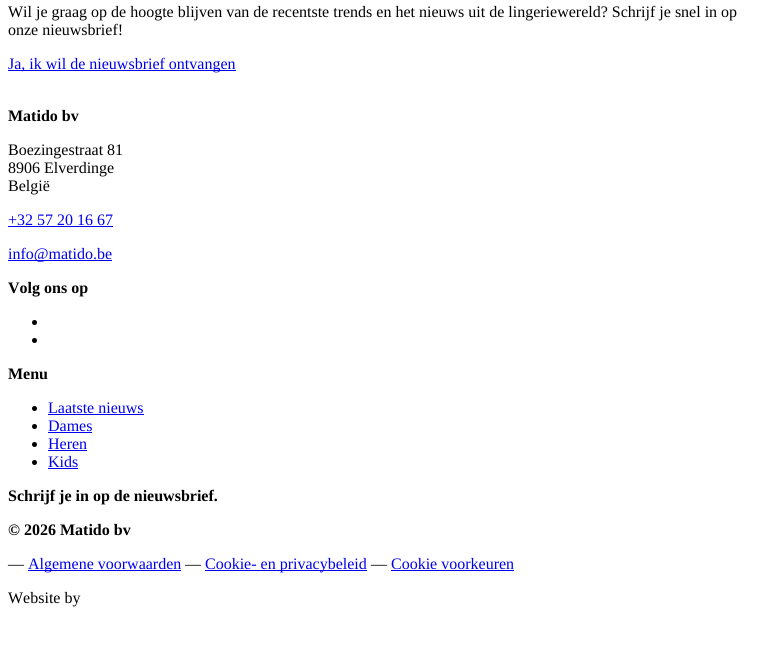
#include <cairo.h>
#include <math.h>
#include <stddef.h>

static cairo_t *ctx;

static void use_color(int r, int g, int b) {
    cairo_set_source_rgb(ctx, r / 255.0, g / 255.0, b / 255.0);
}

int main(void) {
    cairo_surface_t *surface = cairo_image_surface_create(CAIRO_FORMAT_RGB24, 768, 649);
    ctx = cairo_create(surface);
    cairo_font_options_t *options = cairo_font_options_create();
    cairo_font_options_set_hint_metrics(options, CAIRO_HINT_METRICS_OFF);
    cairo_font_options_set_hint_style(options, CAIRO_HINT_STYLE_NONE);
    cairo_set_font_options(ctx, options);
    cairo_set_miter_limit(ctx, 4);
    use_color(255, 255, 255);
    cairo_paint(ctx);
    cairo_select_font_face(ctx, "Liberation Serif", CAIRO_FONT_SLANT_NORMAL, CAIRO_FONT_WEIGHT_NORMAL);
    cairo_set_font_size(ctx, 16);
    use_color(0, 0, 0);
    cairo_move_to(ctx, 8, 17);
    cairo_show_text(ctx, "Wil je graag op de hoogte blijven van de recentste trends en het nieuws uit de lingeriewereld? Schrijf je snel in op");
    cairo_move_to(ctx, 8, 35);
    cairo_show_text(ctx, "onze nieuwsbrief!");
    use_color(0, 0, 238);
    cairo_rectangle(ctx, 8, 70, 228, 1);
    cairo_fill(ctx);
    cairo_move_to(ctx, 8, 69);
    cairo_show_text(ctx, "Ja, ik wil de nieuwsbrief ontvangen");
    cairo_select_font_face(ctx, "Liberation Serif", CAIRO_FONT_SLANT_NORMAL, CAIRO_FONT_WEIGHT_BOLD);
    use_color(0, 0, 0);
    cairo_move_to(ctx, 8, 121);
    cairo_show_text(ctx, "Matido bv");
    cairo_select_font_face(ctx, "Liberation Serif", CAIRO_FONT_SLANT_NORMAL, CAIRO_FONT_WEIGHT_NORMAL);
    cairo_move_to(ctx, 8, 155);
    cairo_show_text(ctx, "Boezingestraat 81");
    cairo_move_to(ctx, 8, 173);
    cairo_show_text(ctx, "8906 Elverdinge");
    cairo_move_to(ctx, 8, 191);
    cairo_show_text(ctx, "België");
    use_color(0, 0, 238);
    cairo_move_to(ctx, 8, 225);
    cairo_show_text(ctx, "+32 57 20 16 67");
    cairo_rectangle(ctx, 8, 226, 105, 1);
    cairo_fill(ctx);
    cairo_rectangle(ctx, 8, 260, 104, 1);
    cairo_fill(ctx);
    cairo_move_to(ctx, 8, 259);
    cairo_show_text(ctx, "info@matido.be");
    cairo_select_font_face(ctx, "Liberation Serif", CAIRO_FONT_SLANT_NORMAL, CAIRO_FONT_WEIGHT_BOLD);
    use_color(0, 0, 0);
    cairo_move_to(ctx, 8, 293);
    cairo_show_text(ctx, "Volg ons op");
    cairo_new_path(ctx);
    cairo_arc(ctx, 34.5, 322.5, 2.5, 0, 2 * M_PI);
    cairo_fill(ctx);
    cairo_arc(ctx, 34.5, 340.5, 2.5, 0, 2 * M_PI);
    cairo_fill(ctx);
    cairo_move_to(ctx, 8, 379);
    cairo_show_text(ctx, "Menu");
    cairo_new_path(ctx);
    cairo_arc(ctx, 34.5, 408.5, 2.5, 0, 2 * M_PI);
    cairo_fill(ctx);
    cairo_select_font_face(ctx, "Liberation Serif", CAIRO_FONT_SLANT_NORMAL, CAIRO_FONT_WEIGHT_NORMAL);
    use_color(0, 0, 238);
    cairo_move_to(ctx, 48, 413);
    cairo_show_text(ctx, "Laatste nieuws");
    cairo_rectangle(ctx, 48, 414, 96, 1);
    cairo_fill(ctx);
    use_color(0, 0, 0);
    cairo_arc(ctx, 34.5, 426.5, 2.5, 0, 2 * M_PI);
    cairo_fill(ctx);
    use_color(0, 0, 238);
    cairo_move_to(ctx, 48, 431);
    cairo_show_text(ctx, "Dames");
    cairo_rectangle(ctx, 48, 432, 44, 1);
    cairo_fill(ctx);
    use_color(0, 0, 0);
    cairo_arc(ctx, 34.5, 444.5, 2.5, 0, 2 * M_PI);
    cairo_fill(ctx);
    use_color(0, 0, 238);
    cairo_move_to(ctx, 48, 449);
    cairo_show_text(ctx, "Heren");
    cairo_rectangle(ctx, 48, 450, 39, 1);
    cairo_fill(ctx);
    use_color(0, 0, 0);
    cairo_arc(ctx, 34.5, 462.5, 2.5, 0, 2 * M_PI);
    cairo_fill(ctx);
    use_color(0, 0, 238);
    cairo_move_to(ctx, 48, 467);
    cairo_show_text(ctx, "Kids");
    cairo_rectangle(ctx, 48, 468, 30, 1);
    cairo_fill(ctx);
    cairo_select_font_face(ctx, "Liberation Serif", CAIRO_FONT_SLANT_NORMAL, CAIRO_FONT_WEIGHT_BOLD);
    use_color(0, 0, 0);
    cairo_move_to(ctx, 8, 501);
    cairo_show_text(ctx, "Schrijf je in op de nieuwsbrief.");
    cairo_move_to(ctx, 8, 535);
    cairo_show_text(ctx, "© 2026 Matido bv");
    cairo_select_font_face(ctx, "Liberation Serif", CAIRO_FONT_SLANT_NORMAL, CAIRO_FONT_WEIGHT_NORMAL);
    cairo_move_to(ctx, 8, 569);
    cairo_show_text(ctx, "—");
    use_color(0, 0, 238);
    cairo_rectangle(ctx, 28, 570, 153, 1);
    cairo_fill(ctx);
    cairo_move_to(ctx, 28, 569);
    cairo_show_text(ctx, "Algemene voorwaarden");
    use_color(0, 0, 0);
    cairo_move_to(ctx, 185, 569);
    cairo_show_text(ctx, "—");
    use_color(0, 0, 238);
    cairo_rectangle(ctx, 205, 570, 162, 1);
    cairo_fill(ctx);
    cairo_move_to(ctx, 205, 569);
    cairo_show_text(ctx, "Cookie- en privacybeleid");
    use_color(0, 0, 0);
    cairo_move_to(ctx, 371, 569);
    cairo_show_text(ctx, "—");
    use_color(0, 0, 238);
    cairo_move_to(ctx, 391, 569);
    cairo_show_text(ctx, "Cookie voorkeuren");
    cairo_rectangle(ctx, 391, 570, 123, 1);
    cairo_fill(ctx);
    use_color(0, 0, 0);
    cairo_move_to(ctx, 8, 603);
    cairo_show_text(ctx, "Website by");
    cairo_surface_write_to_png(surface, "result.png");
    cairo_font_options_destroy(options);
    cairo_destroy(ctx);
    cairo_surface_destroy(surface);
    return 0;
}
